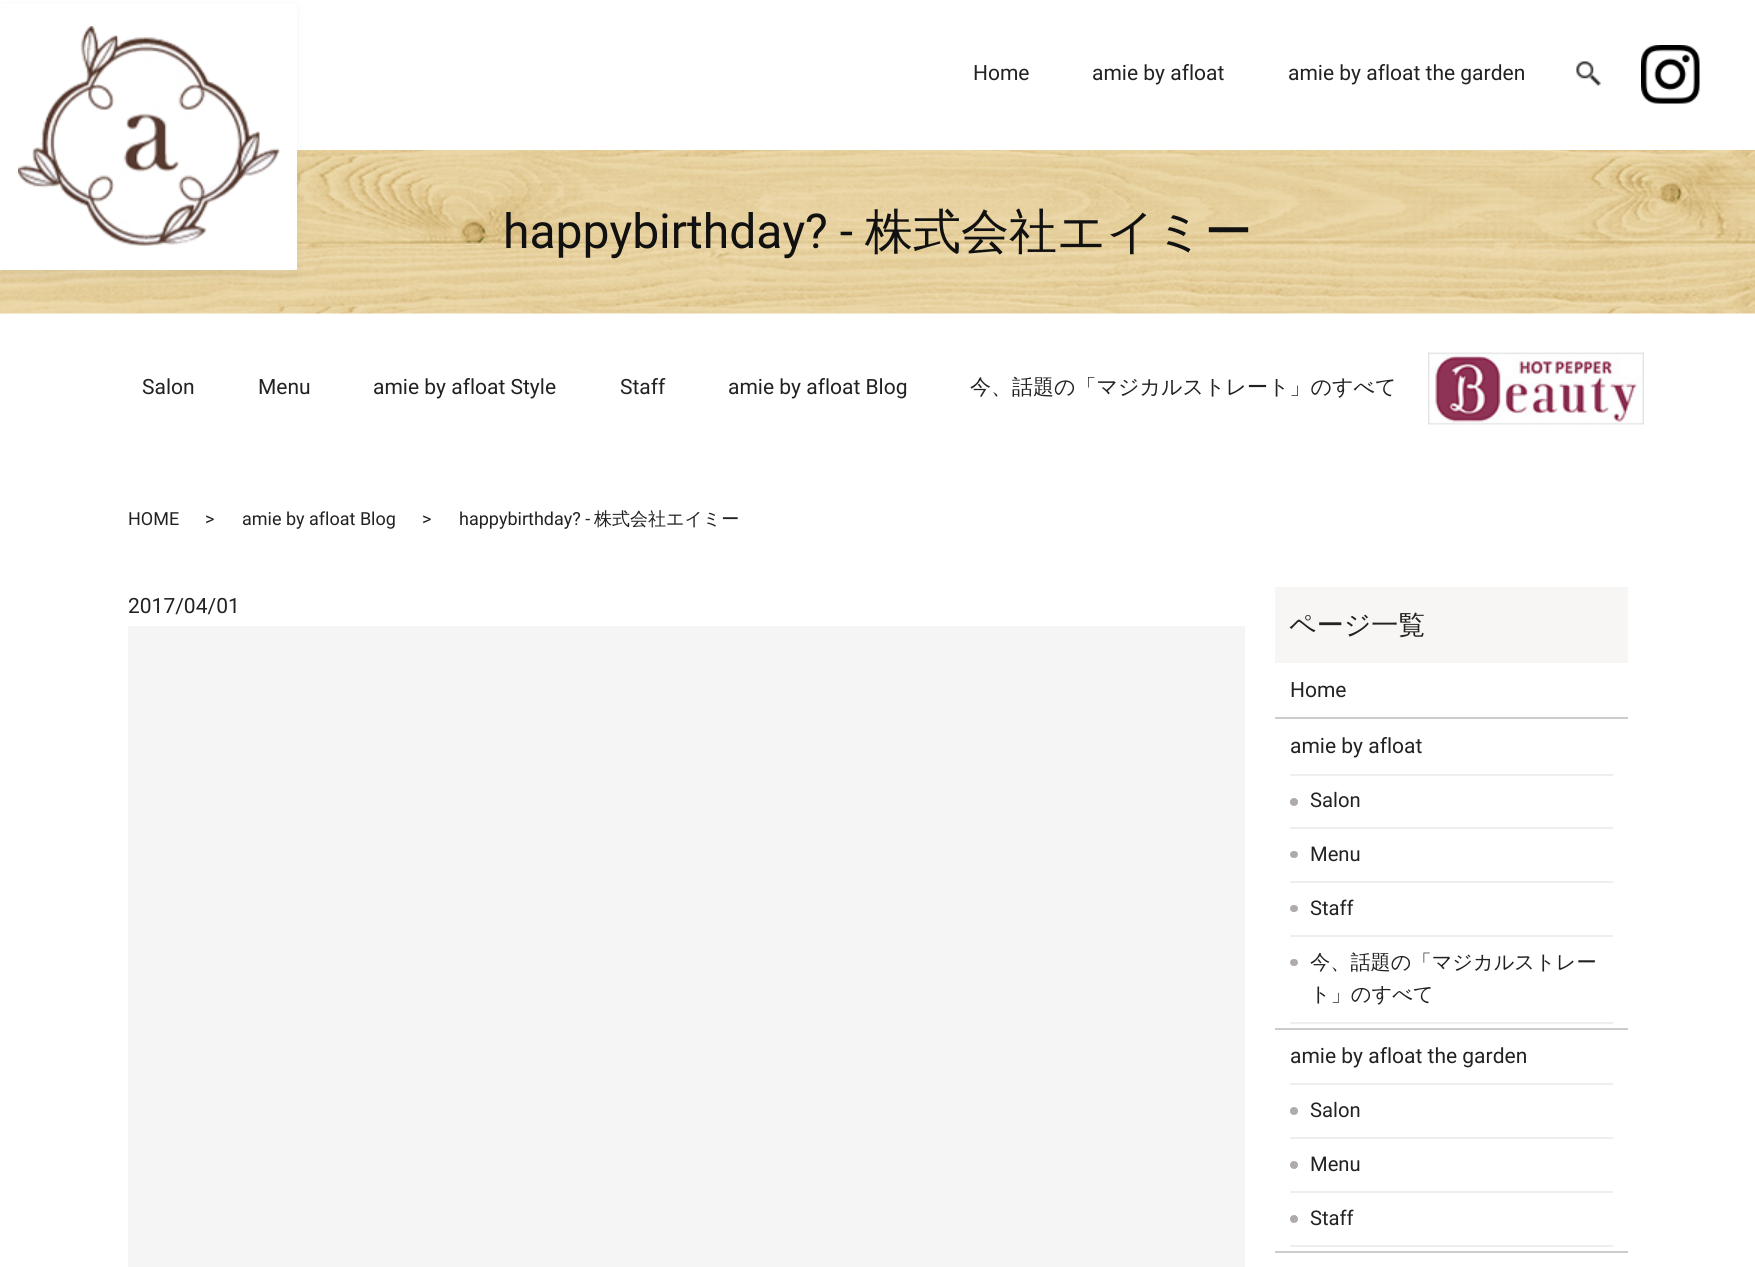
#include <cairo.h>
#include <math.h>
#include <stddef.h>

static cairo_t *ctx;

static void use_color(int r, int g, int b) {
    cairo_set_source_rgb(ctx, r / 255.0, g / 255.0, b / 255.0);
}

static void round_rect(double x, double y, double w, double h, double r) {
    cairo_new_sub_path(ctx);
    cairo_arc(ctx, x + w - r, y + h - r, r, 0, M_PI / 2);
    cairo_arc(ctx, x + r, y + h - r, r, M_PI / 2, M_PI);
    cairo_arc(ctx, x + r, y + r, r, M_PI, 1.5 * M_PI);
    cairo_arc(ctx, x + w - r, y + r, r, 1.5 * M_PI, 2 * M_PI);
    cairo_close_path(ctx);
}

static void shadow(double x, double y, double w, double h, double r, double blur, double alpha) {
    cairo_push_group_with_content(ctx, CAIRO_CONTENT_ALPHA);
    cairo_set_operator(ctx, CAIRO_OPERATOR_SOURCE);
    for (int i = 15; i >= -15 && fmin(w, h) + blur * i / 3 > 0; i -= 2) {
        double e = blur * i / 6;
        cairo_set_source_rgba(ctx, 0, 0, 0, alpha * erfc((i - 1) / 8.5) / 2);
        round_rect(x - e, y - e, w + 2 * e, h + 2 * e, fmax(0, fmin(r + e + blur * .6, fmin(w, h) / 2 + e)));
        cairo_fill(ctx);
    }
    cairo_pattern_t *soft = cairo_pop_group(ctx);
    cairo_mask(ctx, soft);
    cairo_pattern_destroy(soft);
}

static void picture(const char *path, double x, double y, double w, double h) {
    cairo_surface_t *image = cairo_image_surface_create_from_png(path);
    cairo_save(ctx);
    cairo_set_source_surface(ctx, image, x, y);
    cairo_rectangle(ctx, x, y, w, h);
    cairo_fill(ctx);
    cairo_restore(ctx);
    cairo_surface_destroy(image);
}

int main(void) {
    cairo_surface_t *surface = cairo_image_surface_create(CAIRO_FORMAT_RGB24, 1755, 1267);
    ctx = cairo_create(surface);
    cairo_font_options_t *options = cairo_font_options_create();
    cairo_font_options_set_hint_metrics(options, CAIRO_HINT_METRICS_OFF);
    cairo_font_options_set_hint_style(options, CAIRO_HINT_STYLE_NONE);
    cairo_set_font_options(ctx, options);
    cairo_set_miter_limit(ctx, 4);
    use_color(255, 255, 255);
    cairo_paint(ctx);
    picture("img5.png", 0, 150, 1755, 164);
    use_color(0, 0, 0);
    shadow(0, 8, 297, 270, 0, 4.5, 0.05);
    use_color(255, 255, 255);
    cairo_rectangle(ctx, 0, 4, 297, 266);
    cairo_fill(ctx);
    picture("img1.png", 18, 26, 262, 220);
    cairo_select_font_face(ctx, "Roboto", CAIRO_FONT_SLANT_NORMAL, CAIRO_FONT_WEIGHT_NORMAL);
    cairo_set_font_size(ctx, 21);
    use_color(34, 34, 34);
    cairo_move_to(ctx, 973, 80);
    cairo_show_text(ctx, "Home");
    cairo_move_to(ctx, 1092, 80);
    cairo_show_text(ctx, "amie by afloat");
    cairo_move_to(ctx, 1288, 80);
    cairo_show_text(ctx, "amie by afloat the garden");
    picture("img2.png", 1576, 61, 25, 25);
    picture("img3.png", 1641, 45, 59, 59);
    cairo_move_to(ctx, 142, 394);
    cairo_show_text(ctx, "Salon");
    cairo_move_to(ctx, 258, 394);
    cairo_show_text(ctx, "Menu");
    cairo_move_to(ctx, 373, 394);
    cairo_show_text(ctx, "amie by afloat Style");
    cairo_move_to(ctx, 620, 394);
    cairo_show_text(ctx, "Staff");
    cairo_move_to(ctx, 728, 394);
    cairo_show_text(ctx, "amie by afloat Blog");
    cairo_select_font_face(ctx, "WenQuanYi Zen Hei Medium", CAIRO_FONT_SLANT_NORMAL, CAIRO_FONT_WEIGHT_NORMAL);
    cairo_move_to(ctx, 970, 394);
    cairo_show_text(ctx, "今、話題の「マジカルストレート」のすべて");
    picture("img4.png", 1428, 352, 216, 73);
    cairo_select_font_face(ctx, "Roboto", CAIRO_FONT_SLANT_NORMAL, CAIRO_FONT_WEIGHT_NORMAL);
    cairo_set_font_size(ctx, 48);
    use_color(17, 17, 17);
    cairo_move_to(ctx, 503, 248);
    cairo_show_text(ctx, "happybirthday? -");
    cairo_select_font_face(ctx, "WenQuanYi Zen Hei Medium", CAIRO_FONT_SLANT_NORMAL, CAIRO_FONT_WEIGHT_NORMAL);
    cairo_move_to(ctx, 865, 248);
    cairo_show_text(ctx, "株式会社エイミー");
    cairo_select_font_face(ctx, "Roboto", CAIRO_FONT_SLANT_NORMAL, CAIRO_FONT_WEIGHT_NORMAL);
    cairo_set_font_size(ctx, 18);
    use_color(34, 34, 34);
    cairo_move_to(ctx, 128, 525);
    cairo_show_text(ctx, "HOME");
    cairo_move_to(ctx, 205, 525);
    cairo_show_text(ctx, ">");
    cairo_move_to(ctx, 242, 525);
    cairo_show_text(ctx, "amie by afloat Blog");
    cairo_move_to(ctx, 422, 525);
    cairo_show_text(ctx, ">");
    cairo_move_to(ctx, 459, 525);
    cairo_show_text(ctx, "happybirthday? -");
    cairo_select_font_face(ctx, "WenQuanYi Zen Hei Medium", CAIRO_FONT_SLANT_NORMAL, CAIRO_FONT_WEIGHT_NORMAL);
    cairo_move_to(ctx, 594, 525);
    cairo_show_text(ctx, "株式会社エイミー");
    cairo_select_font_face(ctx, "Roboto", CAIRO_FONT_SLANT_NORMAL, CAIRO_FONT_WEIGHT_NORMAL);
    cairo_set_font_size(ctx, 21);
    cairo_move_to(ctx, 128, 613);
    cairo_show_text(ctx, "2017/04/01");
    use_color(245, 245, 245);
    cairo_rectangle(ctx, 128, 626, 1117, 641);
    cairo_fill(ctx);
    use_color(248, 246, 245);
    cairo_rectangle(ctx, 1275, 587, 353, 76);
    cairo_fill(ctx);
    cairo_select_font_face(ctx, "WenQuanYi Zen Hei Medium", CAIRO_FONT_SLANT_NORMAL, CAIRO_FONT_WEIGHT_NORMAL);
    cairo_set_font_size(ctx, 27);
    use_color(34, 34, 34);
    cairo_move_to(ctx, 1289, 634);
    cairo_show_text(ctx, "ページ一覧");
    use_color(204, 204, 204);
    cairo_rectangle(ctx, 1275, 717, 353, 2);
    cairo_fill(ctx);
    cairo_select_font_face(ctx, "Roboto", CAIRO_FONT_SLANT_NORMAL, CAIRO_FONT_WEIGHT_NORMAL);
    cairo_set_font_size(ctx, 21);
    use_color(34, 34, 34);
    cairo_move_to(ctx, 1290, 697);
    cairo_show_text(ctx, "Home");
    use_color(204, 204, 204);
    cairo_rectangle(ctx, 1275, 1028, 353, 2);
    cairo_fill(ctx);
    use_color(34, 34, 34);
    cairo_move_to(ctx, 1290, 753);
    cairo_show_text(ctx, "amie by afloat");
    use_color(238, 238, 238);
    cairo_rectangle(ctx, 1290, 774, 323, 2);
    cairo_fill(ctx);
    cairo_rectangle(ctx, 1290, 827, 323, 2);
    cairo_fill(ctx);
    use_color(175, 171, 170);
    cairo_arc(ctx, 1294, 802, 4, 0, 2 * M_PI);
    cairo_fill(ctx);
    cairo_set_font_size(ctx, 20.2);
    use_color(34, 34, 34);
    cairo_move_to(ctx, 1310, 807);
    cairo_show_text(ctx, "Salon");
    use_color(238, 238, 238);
    cairo_rectangle(ctx, 1290, 881, 323, 2);
    cairo_fill(ctx);
    use_color(175, 171, 170);
    round_rect(1290, 851, 8, 7, 3.5);
    cairo_fill(ctx);
    use_color(34, 34, 34);
    cairo_move_to(ctx, 1310, 861);
    cairo_show_text(ctx, "Menu");
    use_color(238, 238, 238);
    cairo_rectangle(ctx, 1290, 935, 323, 2);
    cairo_fill(ctx);
    use_color(175, 171, 170);
    round_rect(1290, 905, 8, 7, 3.5);
    cairo_fill(ctx);
    use_color(34, 34, 34);
    cairo_move_to(ctx, 1310, 915);
    cairo_show_text(ctx, "Staff");
    use_color(238, 238, 238);
    cairo_rectangle(ctx, 1290, 1022, 323, 2);
    cairo_fill(ctx);
    use_color(175, 171, 170);
    round_rect(1290, 959, 8, 7, 3.5);
    cairo_fill(ctx);
    cairo_select_font_face(ctx, "WenQuanYi Zen Hei Medium", CAIRO_FONT_SLANT_NORMAL, CAIRO_FONT_WEIGHT_NORMAL);
    use_color(34, 34, 34);
    cairo_move_to(ctx, 1310, 969);
    cairo_show_text(ctx, "今、話題の「マジカルストレー");
    cairo_move_to(ctx, 1310, 1001);
    cairo_show_text(ctx, "ト」のすべて");
    use_color(204, 204, 204);
    cairo_rectangle(ctx, 1275, 1251, 353, 2);
    cairo_fill(ctx);
    cairo_select_font_face(ctx, "Roboto", CAIRO_FONT_SLANT_NORMAL, CAIRO_FONT_WEIGHT_NORMAL);
    cairo_set_font_size(ctx, 21);
    use_color(34, 34, 34);
    cairo_move_to(ctx, 1290, 1063);
    cairo_show_text(ctx, "amie by afloat the garden");
    use_color(238, 238, 238);
    cairo_rectangle(ctx, 1290, 1083, 323, 2);
    cairo_fill(ctx);
    cairo_rectangle(ctx, 1290, 1137, 323, 2);
    cairo_fill(ctx);
    use_color(175, 171, 170);
    cairo_arc(ctx, 1294, 1111, 4, 0, 2 * M_PI);
    cairo_fill(ctx);
    cairo_set_font_size(ctx, 20.2);
    use_color(34, 34, 34);
    cairo_move_to(ctx, 1310, 1117);
    cairo_show_text(ctx, "Salon");
    use_color(238, 238, 238);
    cairo_rectangle(ctx, 1290, 1191, 323, 2);
    cairo_fill(ctx);
    use_color(175, 171, 170);
    cairo_arc(ctx, 1294, 1165, 4, 0, 2 * M_PI);
    cairo_fill(ctx);
    use_color(34, 34, 34);
    cairo_move_to(ctx, 1310, 1171);
    cairo_show_text(ctx, "Menu");
    use_color(238, 238, 238);
    cairo_rectangle(ctx, 1290, 1245, 323, 2);
    cairo_fill(ctx);
    use_color(175, 171, 170);
    cairo_arc(ctx, 1294, 1219, 4, 0, 2 * M_PI);
    cairo_fill(ctx);
    use_color(34, 34, 34);
    cairo_move_to(ctx, 1310, 1225);
    cairo_show_text(ctx, "Staff");
    cairo_surface_write_to_png(surface, "result.png");
    cairo_font_options_destroy(options);
    cairo_destroy(ctx);
    cairo_surface_destroy(surface);
    return 0;
}
